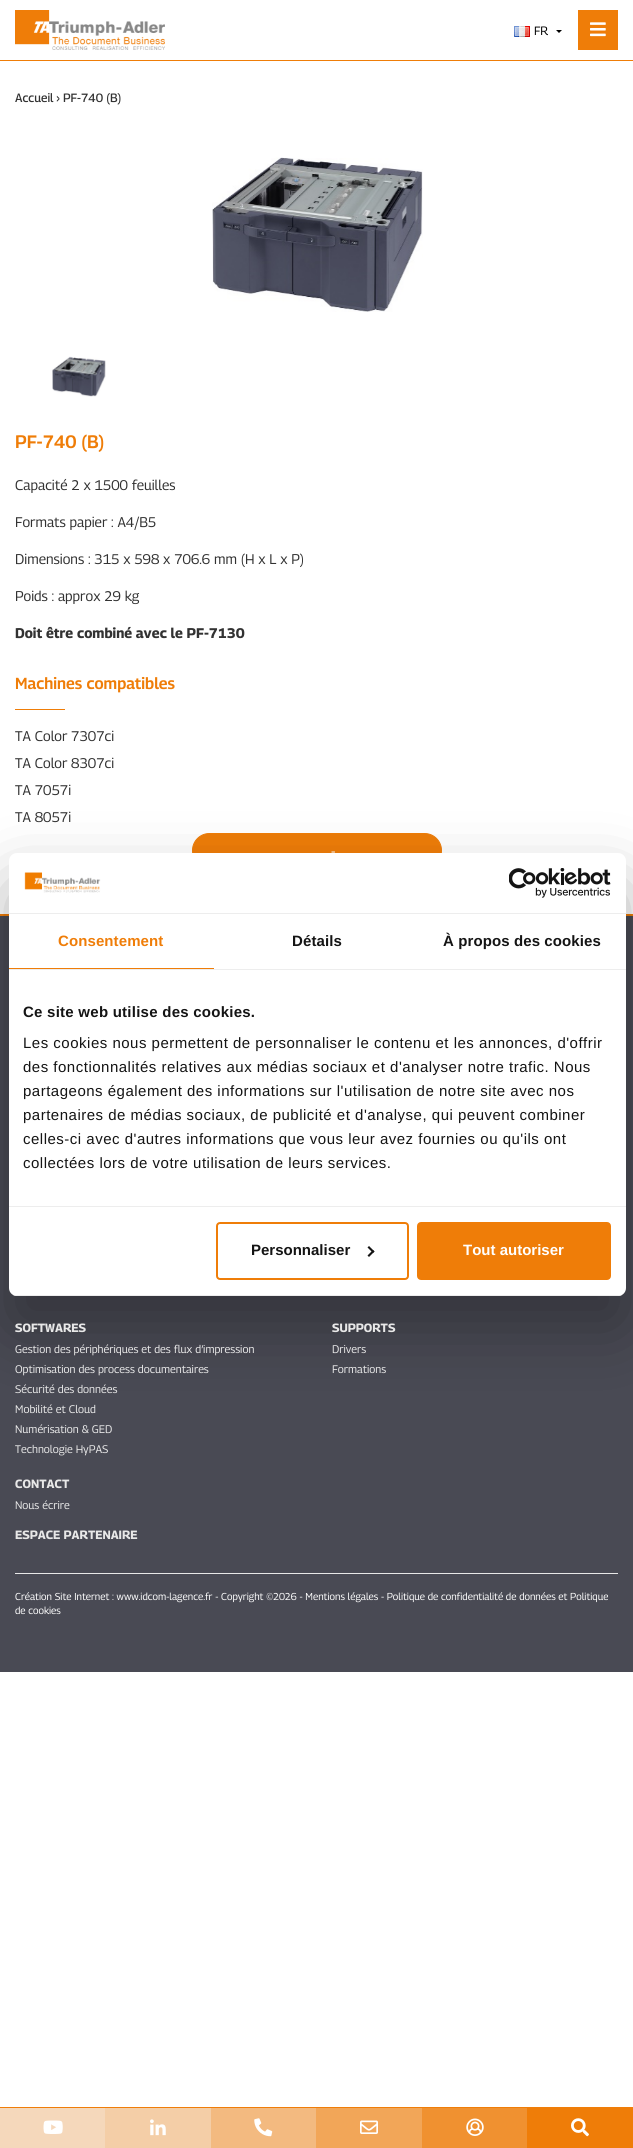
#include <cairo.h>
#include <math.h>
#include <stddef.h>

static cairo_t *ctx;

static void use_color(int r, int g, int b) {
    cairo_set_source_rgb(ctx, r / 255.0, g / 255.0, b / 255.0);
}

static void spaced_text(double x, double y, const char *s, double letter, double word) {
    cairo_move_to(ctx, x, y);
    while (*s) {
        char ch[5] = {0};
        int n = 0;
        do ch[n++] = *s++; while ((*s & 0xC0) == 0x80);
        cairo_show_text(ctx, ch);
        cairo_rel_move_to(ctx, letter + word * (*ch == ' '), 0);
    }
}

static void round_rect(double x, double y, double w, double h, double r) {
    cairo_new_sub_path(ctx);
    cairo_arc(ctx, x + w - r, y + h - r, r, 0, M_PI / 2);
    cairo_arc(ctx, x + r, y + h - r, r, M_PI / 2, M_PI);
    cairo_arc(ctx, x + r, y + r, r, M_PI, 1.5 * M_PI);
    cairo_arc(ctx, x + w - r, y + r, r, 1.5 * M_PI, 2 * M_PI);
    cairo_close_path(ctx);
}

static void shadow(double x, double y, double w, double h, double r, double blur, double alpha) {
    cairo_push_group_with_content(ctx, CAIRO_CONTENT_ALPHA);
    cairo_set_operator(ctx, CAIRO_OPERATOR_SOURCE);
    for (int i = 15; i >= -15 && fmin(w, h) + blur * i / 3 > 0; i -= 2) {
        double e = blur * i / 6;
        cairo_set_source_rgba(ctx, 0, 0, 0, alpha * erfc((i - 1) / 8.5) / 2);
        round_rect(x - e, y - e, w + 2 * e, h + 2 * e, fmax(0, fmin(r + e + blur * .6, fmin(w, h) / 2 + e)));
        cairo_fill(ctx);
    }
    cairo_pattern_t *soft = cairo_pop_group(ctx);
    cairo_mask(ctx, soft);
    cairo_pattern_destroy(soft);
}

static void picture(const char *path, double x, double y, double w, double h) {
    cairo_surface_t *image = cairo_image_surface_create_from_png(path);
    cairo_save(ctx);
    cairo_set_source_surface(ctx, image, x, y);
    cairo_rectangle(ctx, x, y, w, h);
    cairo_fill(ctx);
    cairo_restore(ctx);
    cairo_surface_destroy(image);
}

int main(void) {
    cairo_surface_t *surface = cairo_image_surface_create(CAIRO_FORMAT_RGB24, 633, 2148);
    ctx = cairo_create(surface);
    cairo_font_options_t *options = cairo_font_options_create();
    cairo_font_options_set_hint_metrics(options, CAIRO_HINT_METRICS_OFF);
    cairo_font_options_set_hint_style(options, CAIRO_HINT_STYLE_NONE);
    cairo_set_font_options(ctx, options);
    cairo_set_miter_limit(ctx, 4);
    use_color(255, 255, 255);
    cairo_paint(ctx);
    use_color(239, 125, 8);
    cairo_rectangle(ctx, 0, 60, 633, 1);
    cairo_fill(ctx);
    picture("img1.png", 15, 10, 150, 40);
    picture("img2.png", 514, 26, 16, 11);
    cairo_select_font_face(ctx, "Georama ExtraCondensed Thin", CAIRO_FONT_SLANT_NORMAL, CAIRO_FONT_WEIGHT_NORMAL);
    cairo_set_font_size(ctx, 12);
    use_color(0, 0, 0);
    cairo_move_to(ctx, 534, 35);
    cairo_show_text(ctx, "FR");
    cairo_new_path(ctx);
    cairo_move_to(ctx, 556, 30);
    cairo_line_to(ctx, 562, 30);
    cairo_line_to(ctx, 559, 33);
    cairo_close_path(ctx);
    cairo_fill(ctx);
    use_color(239, 125, 8);
    cairo_rectangle(ctx, 578, 10, 40, 40);
    cairo_fill(ctx);
    picture("img3.png", 590, 22, 16, 15);
    cairo_rectangle(ctx, 0, 2107, 633, 1);
    cairo_fill(ctx);
    use_color(245, 216, 187);
    cairo_rectangle(ctx, 0, 2108, 105, 40);
    cairo_fill(ctx);
    picture("img4.png", 43, 2120, 20, 14);
    use_color(244, 206, 167);
    cairo_rectangle(ctx, 105, 2108, 106, 40);
    cairo_fill(ctx);
    picture("img5.png", 150, 2119, 16, 17);
    use_color(243, 186, 128);
    cairo_rectangle(ctx, 211, 2108, 105, 40);
    cairo_fill(ctx);
    picture("img6.png", 254, 2118, 19, 19);
    use_color(242, 166, 88);
    cairo_rectangle(ctx, 316, 2108, 106, 40);
    cairo_fill(ctx);
    picture("img7.png", 360, 2120, 18, 14);
    use_color(240, 145, 48);
    cairo_rectangle(ctx, 422, 2108, 105, 40);
    cairo_fill(ctx);
    picture("img8.png", 466, 2118, 18, 18);
    use_color(239, 125, 8);
    cairo_rectangle(ctx, 527, 2108, 106, 40);
    cairo_fill(ctx);
    picture("img9.png", 571, 2118, 18, 19);
    cairo_select_font_face(ctx, "Georama ExtraCondensed Thin Medium", CAIRO_FONT_SLANT_NORMAL, CAIRO_FONT_WEIGHT_NORMAL);
    use_color(50, 50, 50);
    cairo_move_to(ctx, 15, 102);
    cairo_show_text(ctx, "Accueil › PF-740 (B)");
    picture("img10.png", 212, 157, 211, 155);
    picture("img11.png", 52, 356, 54, 41);
    cairo_select_font_face(ctx, "Georama ExtraCondensed Thin SemiBold", CAIRO_FONT_SLANT_NORMAL, CAIRO_FONT_WEIGHT_NORMAL);
    cairo_set_font_size(ctx, 18);
    use_color(239, 125, 8);
    cairo_move_to(ctx, 15, 448);
    cairo_show_text(ctx, "PF-740 (B)");
    cairo_select_font_face(ctx, "Georama ExtraCondensed Thin", CAIRO_FONT_SLANT_NORMAL, CAIRO_FONT_WEIGHT_NORMAL);
    cairo_set_font_size(ctx, 14);
    use_color(50, 50, 50);
    cairo_move_to(ctx, 15, 490);
    cairo_show_text(ctx, "Capacité 2 x 1500 feuilles");
    cairo_move_to(ctx, 15, 527);
    cairo_show_text(ctx, "Formats papier : A4/B5");
    cairo_move_to(ctx, 15, 564);
    cairo_show_text(ctx, "Dimensions : 315 x 598 x 706.6 mm (H x L x P)");
    cairo_move_to(ctx, 15, 601);
    cairo_show_text(ctx, "Poids : approx 29 kg");
    cairo_select_font_face(ctx, "Georama ExtraCondensed Thin", CAIRO_FONT_SLANT_NORMAL, CAIRO_FONT_WEIGHT_BOLD);
    cairo_move_to(ctx, 15, 638);
    cairo_show_text(ctx, "Doit être combiné avec le PF-7130");
    cairo_select_font_face(ctx, "Georama ExtraCondensed Thin SemiBold", CAIRO_FONT_SLANT_NORMAL, CAIRO_FONT_WEIGHT_NORMAL);
    cairo_set_font_size(ctx, 16);
    use_color(239, 125, 8);
    cairo_move_to(ctx, 15, 689);
    cairo_show_text(ctx, "Machines compatibles");
    cairo_rectangle(ctx, 15, 709, 50, 1);
    cairo_fill(ctx);
    cairo_select_font_face(ctx, "Georama ExtraCondensed Thin", CAIRO_FONT_SLANT_NORMAL, CAIRO_FONT_WEIGHT_NORMAL);
    cairo_set_font_size(ctx, 14);
    use_color(50, 50, 50);
    cairo_move_to(ctx, 15, 741);
    cairo_show_text(ctx, "TA Color 7307ci");
    cairo_move_to(ctx, 15, 768);
    cairo_show_text(ctx, "TA Color 8307ci");
    cairo_move_to(ctx, 15, 795);
    cairo_show_text(ctx, "TA 7057i");
    cairo_move_to(ctx, 15, 822);
    cairo_show_text(ctx, "TA 8057i");
    use_color(239, 125, 8);
    round_rect(192.5, 833.5, 249, 34, 17);
    cairo_fill_preserve(ctx);
    cairo_set_line_width(ctx, 1);
    cairo_stroke(ctx);
    use_color(255, 255, 255);
    cairo_move_to(ctx, 331, 856);
    cairo_show_text(ctx, "-");
    use_color(73, 74, 84);
    cairo_rectangle(ctx, 0, 916, 633, 756);
    cairo_fill(ctx);
    use_color(239, 125, 8);
    cairo_rectangle(ctx, 0, 914, 633, 2);
    cairo_fill(ctx);
    use_color(0, 0, 0);
    shadow(9, 885, 617, 443, 8, 34, 0.3);
    use_color(255, 255, 255);
    round_rect(9, 853, 617, 443, 8);
    cairo_fill(ctx);
    use_color(237, 237, 237);
    cairo_rectangle(ctx, 9, 913, 617, 1);
    cairo_fill(ctx);
    picture("img12.png", 24, 872, 77, 21);
    picture("img13.png", 509, 868, 102, 30);
    cairo_rectangle(ctx, 9, 969, 617, 1);
    cairo_fill(ctx);
    use_color(239, 125, 8);
    cairo_rectangle(ctx, 9, 968, 205, 1);
    cairo_fill(ctx);
    cairo_select_font_face(ctx, "Liberation Sans", CAIRO_FONT_SLANT_NORMAL, CAIRO_FONT_WEIGHT_BOLD);
    cairo_set_font_size(ctx, 15);
    spaced_text(58, 946, "Consentement", 0.1, 0);
    use_color(20, 20, 20);
    spaced_text(292, 946, "Détails", 0.1, 0);
    spaced_text(443, 946, "À propos des cookies", 0.1, 0);
    use_color(237, 237, 237);
    cairo_rectangle(ctx, 9, 1206, 617, 1);
    cairo_fill(ctx);
    use_color(20, 20, 20);
    spaced_text(23, 1017, "Ce site web utilise des cookies.", 0.25, 0);
    cairo_select_font_face(ctx, "Liberation Sans", CAIRO_FONT_SLANT_NORMAL, CAIRO_FONT_WEIGHT_NORMAL);
    spaced_text(23, 1048, "Les cookies nous permettent de personnaliser le contenu et les annonces, d'offrir", 0.5, 0);
    spaced_text(23, 1072, "des fonctionnalités relatives aux médias sociaux et d'analyser notre trafic. Nous", 0.5, 0);
    spaced_text(23, 1096, "partageons également des informations sur l'utilisation de notre site avec nos", 0.5, 0);
    spaced_text(23, 1120, "partenaires de médias sociaux, de publicité et d'analyse, qui peuvent combiner", 0.5, 0);
    spaced_text(23, 1144, "celles-ci avec d'autres informations que vous leur avez fournies ou qu'ils ont", 0.5, 0);
    spaced_text(23, 1168, "collectées lors de votre utilisation de leurs services.", 0.5, 0);
    cairo_save(ctx);
    round_rect(9, 853, 617, 443, 8);
    cairo_clip(ctx);
    use_color(237, 237, 237);
    cairo_rectangle(ctx, 9, 1295, 617, 1);
    cairo_fill(ctx);
    cairo_restore(ctx);
    round_rect(217, 1223, 191, 56, 3);
    use_color(239, 125, 8);
    cairo_set_line_width(ctx, 2);
    cairo_stroke(ctx);
    cairo_select_font_face(ctx, "Liberation Sans", CAIRO_FONT_SLANT_NORMAL, CAIRO_FONT_WEIGHT_BOLD);
    use_color(20, 20, 20);
    cairo_move_to(ctx, 251, 1255);
    cairo_show_text(ctx, "Personnaliser");
    cairo_new_path(ctx);
    cairo_move_to(ctx, 369, 1246);
    cairo_line_to(ctx, 374.5, 1251.5);
    cairo_line_to(ctx, 373, 1253);
    cairo_line_to(ctx, 367.5, 1247.5);
    cairo_close_path(ctx);
    cairo_fill(ctx);
    cairo_new_path(ctx);
    cairo_move_to(ctx, 373, 1250);
    cairo_line_to(ctx, 374.5, 1251.5);
    cairo_line_to(ctx, 369, 1257);
    cairo_line_to(ctx, 367.5, 1255.5);
    cairo_close_path(ctx);
    cairo_fill(ctx);
    use_color(239, 125, 8);
    round_rect(418, 1223, 192, 56, 3);
    cairo_fill_preserve(ctx);
    cairo_stroke(ctx);
    use_color(255, 255, 255);
    cairo_move_to(ctx, 463, 1255);
    cairo_show_text(ctx, "Tout autoriser");
    cairo_select_font_face(ctx, "Georama ExtraCondensed Thin", CAIRO_FONT_SLANT_NORMAL, CAIRO_FONT_WEIGHT_BOLD);
    cairo_set_font_size(ctx, 12);
    use_color(232, 232, 232);
    cairo_move_to(ctx, 15, 1332);
    cairo_show_text(ctx, "SOFTWARES");
    cairo_select_font_face(ctx, "Georama ExtraCondensed Thin", CAIRO_FONT_SLANT_NORMAL, CAIRO_FONT_WEIGHT_NORMAL);
    cairo_set_font_size(ctx, 11);
    cairo_move_to(ctx, 15, 1353);
    cairo_show_text(ctx, "Gestion des périphériques et des flux d’impression");
    cairo_move_to(ctx, 15, 1373);
    cairo_show_text(ctx, "Optimisation des process documentaires");
    cairo_move_to(ctx, 15, 1393);
    cairo_show_text(ctx, "Sécurité des données");
    cairo_move_to(ctx, 15, 1413);
    cairo_show_text(ctx, "Mobilité et Cloud");
    cairo_move_to(ctx, 15, 1433);
    cairo_show_text(ctx, "Numérisation & GED");
    cairo_move_to(ctx, 15, 1453);
    cairo_show_text(ctx, "Technologie HyPAS");
    cairo_select_font_face(ctx, "Georama ExtraCondensed Thin", CAIRO_FONT_SLANT_NORMAL, CAIRO_FONT_WEIGHT_BOLD);
    cairo_set_font_size(ctx, 12);
    cairo_move_to(ctx, 332, 1332);
    cairo_show_text(ctx, "SUPPORTS");
    cairo_select_font_face(ctx, "Georama ExtraCondensed Thin", CAIRO_FONT_SLANT_NORMAL, CAIRO_FONT_WEIGHT_NORMAL);
    cairo_set_font_size(ctx, 11);
    cairo_move_to(ctx, 332, 1353);
    cairo_show_text(ctx, "Drivers");
    cairo_move_to(ctx, 332, 1373);
    cairo_show_text(ctx, "Formations");
    cairo_select_font_face(ctx, "Georama ExtraCondensed Thin", CAIRO_FONT_SLANT_NORMAL, CAIRO_FONT_WEIGHT_BOLD);
    cairo_set_font_size(ctx, 12);
    cairo_move_to(ctx, 15, 1488);
    cairo_show_text(ctx, "CONTACT");
    cairo_select_font_face(ctx, "Georama ExtraCondensed Thin", CAIRO_FONT_SLANT_NORMAL, CAIRO_FONT_WEIGHT_NORMAL);
    cairo_set_font_size(ctx, 11);
    cairo_move_to(ctx, 15, 1509);
    cairo_show_text(ctx, "Nous écrire");
    cairo_select_font_face(ctx, "Georama ExtraCondensed Thin", CAIRO_FONT_SLANT_NORMAL, CAIRO_FONT_WEIGHT_BOLD);
    cairo_set_font_size(ctx, 12);
    cairo_move_to(ctx, 15, 1539);
    cairo_show_text(ctx, "ESPACE PARTENAIRE");
    cairo_rectangle(ctx, 15, 1573, 603, 1);
    cairo_fill(ctx);
    cairo_select_font_face(ctx, "Georama ExtraCondensed Thin", CAIRO_FONT_SLANT_NORMAL, CAIRO_FONT_WEIGHT_NORMAL);
    cairo_set_font_size(ctx, 10);
    use_color(255, 255, 255);
    cairo_move_to(ctx, 15, 1600);
    cairo_show_text(ctx, "Création Site Internet : www.idcom-lagence.fr - Copyright ©2026 - Mentions légales - Politique de confidentialité de données et Politique");
    cairo_move_to(ctx, 15, 1614);
    cairo_show_text(ctx, "de cookies");
    cairo_surface_write_to_png(surface, "result.png");
    cairo_font_options_destroy(options);
    cairo_destroy(ctx);
    cairo_surface_destroy(surface);
    return 0;
}
